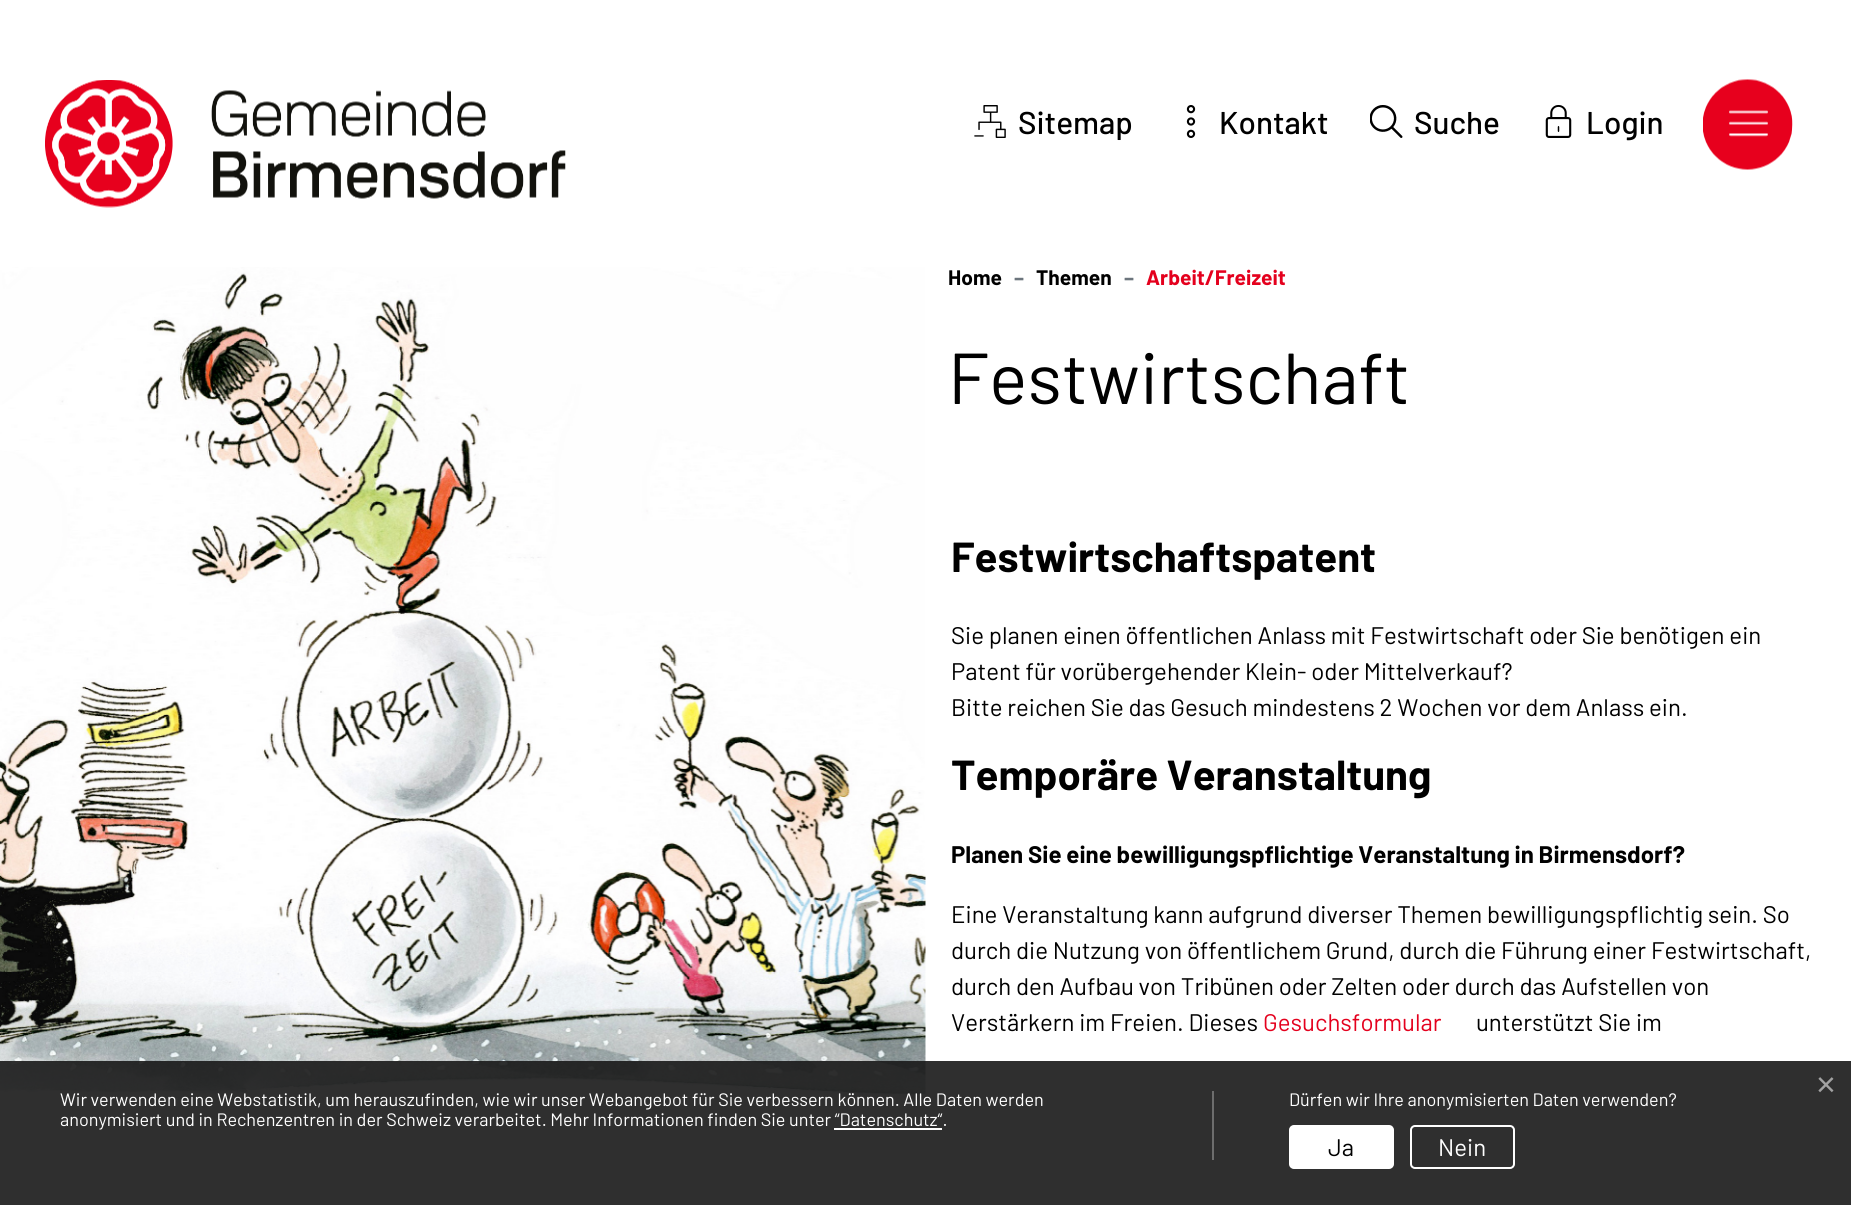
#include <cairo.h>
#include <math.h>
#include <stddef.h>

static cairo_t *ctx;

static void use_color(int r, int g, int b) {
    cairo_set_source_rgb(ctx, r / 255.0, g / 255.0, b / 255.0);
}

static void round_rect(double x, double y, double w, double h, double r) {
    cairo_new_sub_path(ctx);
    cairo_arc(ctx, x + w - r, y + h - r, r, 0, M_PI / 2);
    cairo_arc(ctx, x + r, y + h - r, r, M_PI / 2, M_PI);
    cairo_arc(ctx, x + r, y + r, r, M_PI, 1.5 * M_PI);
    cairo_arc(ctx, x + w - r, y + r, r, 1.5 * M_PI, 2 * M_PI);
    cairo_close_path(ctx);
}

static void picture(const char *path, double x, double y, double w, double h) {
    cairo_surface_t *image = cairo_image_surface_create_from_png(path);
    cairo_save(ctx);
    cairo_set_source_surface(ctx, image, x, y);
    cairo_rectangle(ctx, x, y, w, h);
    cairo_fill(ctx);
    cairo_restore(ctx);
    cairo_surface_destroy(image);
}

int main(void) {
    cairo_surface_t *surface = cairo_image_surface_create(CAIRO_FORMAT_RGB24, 1851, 1205);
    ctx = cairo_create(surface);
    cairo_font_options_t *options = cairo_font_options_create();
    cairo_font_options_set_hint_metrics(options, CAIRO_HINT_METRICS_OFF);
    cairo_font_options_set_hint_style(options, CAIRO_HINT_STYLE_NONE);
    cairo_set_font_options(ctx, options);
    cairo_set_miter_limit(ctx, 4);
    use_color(255, 255, 255);
    cairo_paint(ctx);
    picture("img1.png", 45, 80, 521, 128);
    picture("img2.png", 974, 105, 32, 33);
    cairo_select_font_face(ctx, "Barlow Medium", CAIRO_FONT_SLANT_NORMAL, CAIRO_FONT_WEIGHT_NORMAL);
    cairo_set_font_size(ctx, 31.5);
    use_color(0, 0, 0);
    cairo_move_to(ctx, 1018, 134);
    cairo_show_text(ctx, "Sitemap");
    picture("img3.png", 1186, 105, 10, 33);
    cairo_move_to(ctx, 1219, 134);
    cairo_show_text(ctx, "Kontakt");
    picture("img4.png", 1370, 105, 33, 33);
    cairo_move_to(ctx, 1414, 134);
    cairo_show_text(ctx, "Suche");
    picture("img5.png", 1545, 105, 27, 33);
    cairo_move_to(ctx, 1586, 134);
    cairo_show_text(ctx, "Login");
    picture("img6.png", 1703, 79, 90, 91);
    picture("img7.png", 0, 267, 926, 844);
    cairo_select_font_face(ctx, "Barlow", CAIRO_FONT_SLANT_NORMAL, CAIRO_FONT_WEIGHT_BOLD);
    cairo_set_font_size(ctx, 21);
    cairo_move_to(ctx, 948, 285);
    cairo_show_text(ctx, "Home");
    use_color(108, 117, 125);
    cairo_move_to(ctx, 1014, 285);
    cairo_show_text(ctx, "–");
    use_color(0, 0, 0);
    cairo_move_to(ctx, 1036, 285);
    cairo_show_text(ctx, "Themen");
    use_color(108, 117, 125);
    cairo_move_to(ctx, 1124, 285);
    cairo_show_text(ctx, "–");
    use_color(228, 0, 29);
    cairo_move_to(ctx, 1146, 285);
    cairo_show_text(ctx, "Arbeit/Freizeit");
    cairo_select_font_face(ctx, "Barlow", CAIRO_FONT_SLANT_NORMAL, CAIRO_FONT_WEIGHT_NORMAL);
    cairo_set_font_size(ctx, 72);
    use_color(0, 0, 0);
    cairo_move_to(ctx, 948, 404);
    cairo_show_text(ctx, "Festwirtschaft");
    cairo_select_font_face(ctx, "Barlow", CAIRO_FONT_SLANT_NORMAL, CAIRO_FONT_WEIGHT_BOLD);
    cairo_set_font_size(ctx, 42);
    cairo_move_to(ctx, 951, 572);
    cairo_show_text(ctx, "Festwirtschaftspatent");
    cairo_select_font_face(ctx, "Barlow", CAIRO_FONT_SLANT_NORMAL, CAIRO_FONT_WEIGHT_NORMAL);
    cairo_set_font_size(ctx, 24);
    cairo_move_to(ctx, 951, 644);
    cairo_show_text(ctx, "Sie planen einen öffentlichen Anlass mit Festwirtschaft oder Sie benötigen ein");
    cairo_move_to(ctx, 951, 680);
    cairo_show_text(ctx, "Patent für vorübergehender Klein- oder Mittelverkauf?");
    cairo_move_to(ctx, 951, 716);
    cairo_show_text(ctx, "Bitte reichen Sie das Gesuch mindestens 2 Wochen vor dem Anlass ein.");
    cairo_select_font_face(ctx, "Barlow", CAIRO_FONT_SLANT_NORMAL, CAIRO_FONT_WEIGHT_BOLD);
    cairo_set_font_size(ctx, 42);
    cairo_move_to(ctx, 951, 790);
    cairo_show_text(ctx, "Temporäre Veranstaltung");
    cairo_set_font_size(ctx, 24);
    cairo_move_to(ctx, 951, 863);
    cairo_show_text(ctx, "Planen Sie eine bewilligungspflichtige Veranstaltung in Birmensdorf?");
    cairo_select_font_face(ctx, "Barlow", CAIRO_FONT_SLANT_NORMAL, CAIRO_FONT_WEIGHT_NORMAL);
    cairo_move_to(ctx, 951, 923);
    cairo_show_text(ctx, "Eine Veranstaltung kann aufgrund diverser Themen bewilligungspflichtig sein. So");
    cairo_move_to(ctx, 951, 959);
    cairo_show_text(ctx, "durch die Nutzung von öffentlichem Grund, durch die Führung einer Festwirtschaft,");
    cairo_move_to(ctx, 951, 995);
    cairo_show_text(ctx, "durch den Aufbau von Tribünen oder Zelten oder durch das Aufstellen von");
    cairo_move_to(ctx, 951, 1031);
    cairo_show_text(ctx, "Verstärkern im Freien. Dieses");
    use_color(228, 0, 29);
    cairo_move_to(ctx, 1263, 1031);
    cairo_show_text(ctx, "Gesuchsformular");
    use_color(0, 0, 0);
    cairo_move_to(ctx, 1476, 1031);
    cairo_show_text(ctx, "unterstützt Sie im");
    cairo_set_source_rgba(ctx, 0.098, 0.098, 0.098, 0.9);
    cairo_rectangle(ctx, 0, 1061, 1851, 144);
    cairo_fill(ctx);
    cairo_select_font_face(ctx, "Liberation Sans", CAIRO_FONT_SLANT_NORMAL, CAIRO_FONT_WEIGHT_NORMAL);
    cairo_set_font_size(ctx, 34);
    use_color(162, 162, 162);
    cairo_move_to(ctx, 1816, 1096);
    cairo_show_text(ctx, "×");
    use_color(109, 109, 109);
    cairo_rectangle(ctx, 1212, 1091, 2, 69);
    cairo_fill(ctx);
    cairo_select_font_face(ctx, "Barlow", CAIRO_FONT_SLANT_NORMAL, CAIRO_FONT_WEIGHT_NORMAL);
    cairo_set_font_size(ctx, 18);
    use_color(255, 255, 255);
    cairo_move_to(ctx, 60, 1106);
    cairo_show_text(ctx, "Wir verwenden eine Webstatistik, um herauszufinden, wie wir unser Webangebot für Sie verbessern können. Alle Daten werden");
    cairo_move_to(ctx, 60, 1126);
    cairo_show_text(ctx, "anonymisiert und in Rechenzentren in der Schweiz verarbeitet. Mehr Informationen finden Sie unter “Datenschutz“.");
    cairo_rectangle(ctx, 834, 1128, 108, 2);
    cairo_fill(ctx);
    cairo_move_to(ctx, 1289, 1106);
    cairo_show_text(ctx, "Dürfen wir Ihre anonymisierten Daten verwenden?");
    round_rect(1290, 1126, 103, 42, 4);
    cairo_fill_preserve(ctx);
    cairo_stroke(ctx);
    cairo_set_font_size(ctx, 24);
    use_color(0, 0, 0);
    cairo_move_to(ctx, 1328, 1156);
    cairo_show_text(ctx, "Ja");
    round_rect(1411, 1126, 103, 42, 4);
    use_color(255, 255, 255);
    cairo_stroke(ctx);
    cairo_move_to(ctx, 1438, 1156);
    cairo_show_text(ctx, "Nein");
    cairo_surface_write_to_png(surface, "result.png");
    cairo_font_options_destroy(options);
    cairo_destroy(ctx);
    cairo_surface_destroy(surface);
    return 0;
}
